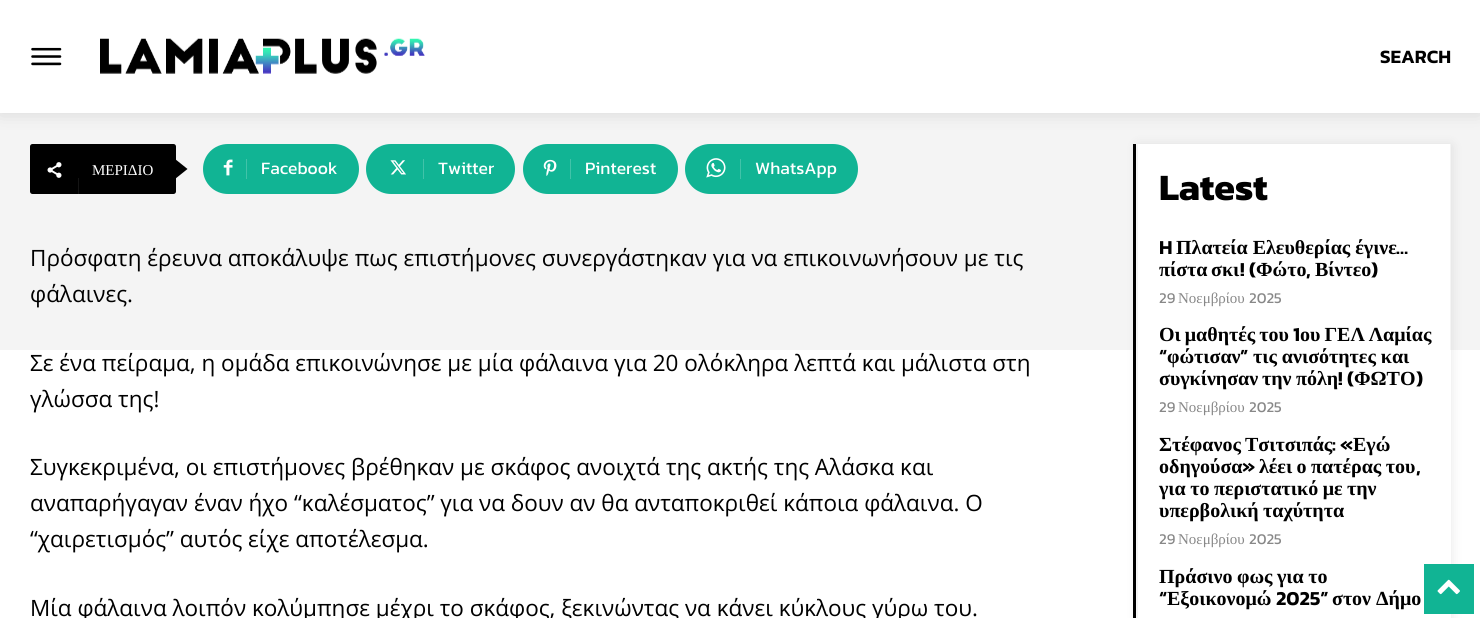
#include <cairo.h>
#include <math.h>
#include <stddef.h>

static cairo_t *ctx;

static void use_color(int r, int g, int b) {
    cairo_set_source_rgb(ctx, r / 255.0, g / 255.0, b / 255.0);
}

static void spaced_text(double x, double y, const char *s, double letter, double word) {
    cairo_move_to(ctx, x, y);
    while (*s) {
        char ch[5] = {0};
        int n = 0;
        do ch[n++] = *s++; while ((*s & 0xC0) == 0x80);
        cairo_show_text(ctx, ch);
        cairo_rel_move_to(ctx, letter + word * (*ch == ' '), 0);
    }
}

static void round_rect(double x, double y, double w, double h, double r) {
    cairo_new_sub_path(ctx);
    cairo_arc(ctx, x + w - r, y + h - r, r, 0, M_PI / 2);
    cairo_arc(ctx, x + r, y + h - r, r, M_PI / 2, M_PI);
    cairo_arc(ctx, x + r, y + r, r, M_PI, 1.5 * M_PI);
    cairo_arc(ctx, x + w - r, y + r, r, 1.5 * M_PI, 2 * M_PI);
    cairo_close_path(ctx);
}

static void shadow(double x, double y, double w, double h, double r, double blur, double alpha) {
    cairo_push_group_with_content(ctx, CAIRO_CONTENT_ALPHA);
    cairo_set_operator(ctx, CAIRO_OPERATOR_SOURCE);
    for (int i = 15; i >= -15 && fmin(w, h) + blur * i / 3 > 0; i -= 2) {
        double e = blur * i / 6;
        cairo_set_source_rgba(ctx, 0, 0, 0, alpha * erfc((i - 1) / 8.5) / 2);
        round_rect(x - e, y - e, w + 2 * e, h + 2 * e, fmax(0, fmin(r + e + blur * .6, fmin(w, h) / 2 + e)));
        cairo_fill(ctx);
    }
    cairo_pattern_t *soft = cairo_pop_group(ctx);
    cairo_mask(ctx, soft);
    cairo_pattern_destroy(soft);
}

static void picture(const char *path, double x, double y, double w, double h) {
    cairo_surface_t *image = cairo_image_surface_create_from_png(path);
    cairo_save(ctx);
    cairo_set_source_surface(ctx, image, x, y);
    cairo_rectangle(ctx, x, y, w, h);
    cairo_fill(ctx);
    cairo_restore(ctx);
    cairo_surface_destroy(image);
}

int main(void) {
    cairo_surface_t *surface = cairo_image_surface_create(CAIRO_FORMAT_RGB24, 1480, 618);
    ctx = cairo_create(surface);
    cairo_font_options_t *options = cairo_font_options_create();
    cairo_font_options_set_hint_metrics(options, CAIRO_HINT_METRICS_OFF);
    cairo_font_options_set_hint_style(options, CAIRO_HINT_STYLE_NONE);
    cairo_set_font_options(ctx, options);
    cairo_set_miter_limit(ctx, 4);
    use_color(255, 255, 255);
    cairo_paint(ctx);
    picture("img1.png", 31, 47, 31, 19);
    picture("img2.png", 100, 38, 325, 36);
    use_color(244, 244, 244);
    cairo_rectangle(ctx, 0, 113, 1480, 237);
    cairo_fill(ctx);
    cairo_save(ctx);
    cairo_set_fill_rule(ctx, CAIRO_FILL_RULE_EVEN_ODD);
    cairo_new_path(ctx);
    cairo_move_to(ctx, 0, 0);
    cairo_line_to(ctx, 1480, 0);
    cairo_line_to(ctx, 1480, 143);
    cairo_line_to(ctx, 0, 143);
    cairo_close_path(ctx);
    cairo_move_to(ctx, 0, 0);
    cairo_line_to(ctx, 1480, 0);
    cairo_line_to(ctx, 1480, 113);
    cairo_line_to(ctx, 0, 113);
    cairo_close_path(ctx);
    cairo_clip(ctx);
    use_color(0, 0, 0);
    shadow(0, 0, 1480, 113, 0, 9.5, 0.12);
    cairo_restore(ctx);
    cairo_select_font_face(ctx, "Kanit SemiBold", CAIRO_FONT_SLANT_NORMAL, CAIRO_FONT_WEIGHT_NORMAL);
    cairo_set_font_size(ctx, 19);
    use_color(0, 0, 0);
    cairo_move_to(ctx, 1380, 63);
    cairo_show_text(ctx, "SEARCH");
    round_rect(30, 144, 146, 50, 2.5);
    cairo_fill(ctx);
    use_color(20, 20, 20);
    cairo_rectangle(ctx, 78, 178, 1, 16);
    cairo_fill(ctx);
    picture("img3.png", 47, 162, 15, 16);
    cairo_select_font_face(ctx, "Liberation Serif", CAIRO_FONT_SLANT_NORMAL, CAIRO_FONT_WEIGHT_NORMAL);
    cairo_set_font_size(ctx, 15);
    use_color(255, 255, 255);
    cairo_move_to(ctx, 92, 175);
    cairo_show_text(ctx, "ΜΕΡΙΔΙΟ");
    use_color(0, 0, 0);
    cairo_new_path(ctx);
    cairo_move_to(ctx, 175, 179);
    cairo_line_to(ctx, 175, 159);
    cairo_line_to(ctx, 187.5, 169);
    cairo_close_path(ctx);
    cairo_fill(ctx);
    use_color(17, 180, 148);
    cairo_new_path(ctx);
    cairo_move_to(ctx, 246, 144);
    cairo_line_to(ctx, 334, 144);
    cairo_curve_to(ctx, 348, 144, 359, 155, 359, 169);
    cairo_curve_to(ctx, 359, 183, 348, 194, 334, 194);
    cairo_line_to(ctx, 246, 194);
    cairo_close_path(ctx);
    cairo_fill(ctx);
    cairo_new_path(ctx);
    cairo_move_to(ctx, 228, 144);
    cairo_line_to(ctx, 254, 144);
    cairo_line_to(ctx, 254, 194);
    cairo_line_to(ctx, 228, 194);
    cairo_curve_to(ctx, 214, 194, 203, 183, 203, 169);
    cairo_curve_to(ctx, 203, 155, 214, 144, 228, 144);
    cairo_close_path(ctx);
    cairo_fill(ctx);
    picture("img4.png", 223, 159, 10, 17);
    use_color(65, 195, 169);
    cairo_rectangle(ctx, 246, 159, 1, 20);
    cairo_fill(ctx);
    cairo_select_font_face(ctx, "Kanit", CAIRO_FONT_SLANT_NORMAL, CAIRO_FONT_WEIGHT_NORMAL);
    cairo_set_font_size(ctx, 17.5);
    use_color(255, 255, 255);
    cairo_move_to(ctx, 261, 174);
    cairo_show_text(ctx, "Facebook");
    use_color(17, 180, 148);
    cairo_new_path(ctx);
    cairo_move_to(ctx, 423, 144);
    cairo_line_to(ctx, 490, 144);
    cairo_curve_to(ctx, 504, 144, 515, 155, 515, 169);
    cairo_curve_to(ctx, 515, 183, 504, 194, 490, 194);
    cairo_line_to(ctx, 423, 194);
    cairo_close_path(ctx);
    cairo_fill(ctx);
    cairo_new_path(ctx);
    cairo_move_to(ctx, 391, 144);
    cairo_line_to(ctx, 430, 144);
    cairo_line_to(ctx, 430, 194);
    cairo_line_to(ctx, 391, 194);
    cairo_curve_to(ctx, 377, 194, 366, 183, 366, 169);
    cairo_curve_to(ctx, 366, 155, 377, 144, 391, 144);
    cairo_close_path(ctx);
    cairo_fill(ctx);
    picture("img5.png", 390, 160, 16, 15);
    use_color(65, 195, 169);
    cairo_rectangle(ctx, 423, 159, 1, 20);
    cairo_fill(ctx);
    use_color(255, 255, 255);
    cairo_move_to(ctx, 438, 174);
    cairo_show_text(ctx, "Twitter");
    use_color(17, 180, 148);
    cairo_new_path(ctx);
    cairo_move_to(ctx, 570, 144);
    cairo_line_to(ctx, 653, 144);
    cairo_curve_to(ctx, 667, 144, 678, 155, 678, 169);
    cairo_curve_to(ctx, 678, 183, 667, 194, 653, 194);
    cairo_line_to(ctx, 570, 194);
    cairo_close_path(ctx);
    cairo_fill(ctx);
    cairo_new_path(ctx);
    cairo_move_to(ctx, 548, 144);
    cairo_line_to(ctx, 578, 144);
    cairo_line_to(ctx, 578, 194);
    cairo_line_to(ctx, 548, 194);
    cairo_curve_to(ctx, 534, 194, 523, 183, 523, 169);
    cairo_curve_to(ctx, 523, 155, 534, 144, 548, 144);
    cairo_close_path(ctx);
    cairo_fill(ctx);
    picture("img6.png", 543, 159, 14, 17);
    use_color(65, 195, 169);
    cairo_rectangle(ctx, 570, 159, 1, 20);
    cairo_fill(ctx);
    use_color(255, 255, 255);
    cairo_move_to(ctx, 585, 174);
    cairo_show_text(ctx, "Pinterest");
    use_color(17, 180, 148);
    cairo_new_path(ctx);
    cairo_move_to(ctx, 740, 144);
    cairo_line_to(ctx, 833, 144);
    cairo_curve_to(ctx, 847, 144, 858, 155, 858, 169);
    cairo_curve_to(ctx, 858, 183, 847, 194, 833, 194);
    cairo_line_to(ctx, 740, 194);
    cairo_close_path(ctx);
    cairo_fill(ctx);
    cairo_new_path(ctx);
    cairo_move_to(ctx, 710, 144);
    cairo_line_to(ctx, 748, 144);
    cairo_line_to(ctx, 748, 194);
    cairo_line_to(ctx, 710, 194);
    cairo_curve_to(ctx, 696, 194, 685, 183, 685, 169);
    cairo_curve_to(ctx, 685, 155, 696, 144, 710, 144);
    cairo_close_path(ctx);
    cairo_fill(ctx);
    picture("img7.png", 706, 158, 20, 20);
    use_color(65, 195, 169);
    cairo_rectangle(ctx, 740, 159, 1, 20);
    cairo_fill(ctx);
    use_color(255, 255, 255);
    cairo_move_to(ctx, 755, 174);
    cairo_show_text(ctx, "WhatsApp");
    cairo_select_font_face(ctx, "Open Sans", CAIRO_FONT_SLANT_NORMAL, CAIRO_FONT_WEIGHT_NORMAL);
    cairo_set_font_size(ctx, 22.5);
    use_color(0, 0, 0);
    cairo_move_to(ctx, 30, 266);
    cairo_show_text(ctx, "Πρόσφατη έρευνα αποκάλυψε πως επιστήμονες συνεργάστηκαν για να επικοινωνήσουν με τις");
    cairo_move_to(ctx, 30, 302);
    cairo_show_text(ctx, "φάλαινες.");
    cairo_move_to(ctx, 30, 371);
    cairo_show_text(ctx, "Σε ένα πείραμα, η ομάδα επικοινώνησε με μία φάλαινα για 20 ολόκληρα λεπτά και μάλιστα στη");
    cairo_move_to(ctx, 30, 407);
    cairo_show_text(ctx, "γλώσσα της!");
    cairo_move_to(ctx, 30, 475);
    cairo_show_text(ctx, "Συγκεκριμένα, οι επιστήμονες βρέθηκαν με σκάφος ανοιχτά της ακτής της Αλάσκα και");
    cairo_move_to(ctx, 30, 511);
    cairo_show_text(ctx, "αναπαρήγαγαν έναν ήχο “καλέσματος” για να δουν αν θα ανταποκριθεί κάποια φάλαινα. Ο");
    cairo_move_to(ctx, 30, 547);
    cairo_show_text(ctx, "“χαιρετισμός” αυτός είχε αποτέλεσμα.");
    cairo_move_to(ctx, 30, 616);
    cairo_show_text(ctx, "Μία φάλαινα λοιπόν κολύμπησε μέχρι το σκάφος, ξεκινώντας να κάνει κύκλους γύρω του.");
    cairo_rectangle(ctx, 1133, 144, 3, 474);
    cairo_fill(ctx);
    use_color(255, 255, 255);
    cairo_rectangle(ctx, 1136, 144, 314, 206);
    cairo_fill(ctx);
    cairo_save(ctx);
    cairo_set_fill_rule(ctx, CAIRO_FILL_RULE_EVEN_ODD);
    cairo_new_path(ctx);
    cairo_move_to(ctx, 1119, 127);
    cairo_line_to(ctx, 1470, 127);
    cairo_line_to(ctx, 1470, 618);
    cairo_line_to(ctx, 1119, 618);
    cairo_close_path(ctx);
    cairo_move_to(ctx, 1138, 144);
    cairo_line_to(ctx, 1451, 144);
    cairo_line_to(ctx, 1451, 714);
    cairo_line_to(ctx, 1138, 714);
    cairo_close_path(ctx);
    cairo_clip(ctx);
    use_color(0, 0, 0);
    shadow(1138, 146, 313, 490, 0, 6, 0.1);
    cairo_restore(ctx);
    cairo_select_font_face(ctx, "Kanit", CAIRO_FONT_SLANT_NORMAL, CAIRO_FONT_WEIGHT_BOLD);
    cairo_set_font_size(ctx, 37.5);
    use_color(0, 0, 0);
    cairo_move_to(ctx, 1159, 200);
    cairo_show_text(ctx, "Latest");
    cairo_select_font_face(ctx, "Kanit SemiBold", CAIRO_FONT_SLANT_NORMAL, CAIRO_FONT_WEIGHT_NORMAL);
    cairo_set_font_size(ctx, 20);
    cairo_move_to(ctx, 1159, 254);
    cairo_show_text(ctx, "H");
    cairo_select_font_face(ctx, "Liberation Serif", CAIRO_FONT_SLANT_NORMAL, CAIRO_FONT_WEIGHT_BOLD);
    cairo_move_to(ctx, 1176, 254);
    cairo_show_text(ctx, "Πλατεία Ελευθερίας έγινε");
    cairo_select_font_face(ctx, "Kanit SemiBold", CAIRO_FONT_SLANT_NORMAL, CAIRO_FONT_WEIGHT_NORMAL);
    cairo_move_to(ctx, 1396, 254);
    cairo_show_text(ctx, "…");
    cairo_select_font_face(ctx, "Liberation Serif", CAIRO_FONT_SLANT_NORMAL, CAIRO_FONT_WEIGHT_BOLD);
    cairo_move_to(ctx, 1159, 276);
    cairo_show_text(ctx, "πίστα");
    cairo_move_to(ctx, 1211, 276);
    cairo_show_text(ctx, "σκι");
    cairo_select_font_face(ctx, "Kanit SemiBold", CAIRO_FONT_SLANT_NORMAL, CAIRO_FONT_WEIGHT_NORMAL);
    cairo_move_to(ctx, 1240, 276);
    cairo_show_text(ctx, "! (");
    cairo_select_font_face(ctx, "Liberation Serif", CAIRO_FONT_SLANT_NORMAL, CAIRO_FONT_WEIGHT_BOLD);
    cairo_move_to(ctx, 1256, 276);
    cairo_show_text(ctx, "Φώτο");
    cairo_select_font_face(ctx, "Kanit SemiBold", CAIRO_FONT_SLANT_NORMAL, CAIRO_FONT_WEIGHT_NORMAL);
    cairo_move_to(ctx, 1306, 276);
    cairo_show_text(ctx, ",");
    cairo_select_font_face(ctx, "Liberation Serif", CAIRO_FONT_SLANT_NORMAL, CAIRO_FONT_WEIGHT_BOLD);
    cairo_move_to(ctx, 1315, 276);
    cairo_show_text(ctx, "Βίντεο");
    cairo_select_font_face(ctx, "Kanit SemiBold", CAIRO_FONT_SLANT_NORMAL, CAIRO_FONT_WEIGHT_NORMAL);
    cairo_move_to(ctx, 1371, 276);
    cairo_show_text(ctx, ")");
    cairo_select_font_face(ctx, "Kanit", CAIRO_FONT_SLANT_NORMAL, CAIRO_FONT_WEIGHT_NORMAL);
    cairo_set_font_size(ctx, 15);
    use_color(136, 136, 136);
    cairo_move_to(ctx, 1159, 303);
    cairo_show_text(ctx, "29");
    cairo_select_font_face(ctx, "Liberation Serif", CAIRO_FONT_SLANT_NORMAL, CAIRO_FONT_WEIGHT_NORMAL);
    cairo_move_to(ctx, 1178, 303);
    cairo_show_text(ctx, "Νοεμβρίου");
    cairo_select_font_face(ctx, "Kanit", CAIRO_FONT_SLANT_NORMAL, CAIRO_FONT_WEIGHT_NORMAL);
    cairo_move_to(ctx, 1249, 303);
    cairo_show_text(ctx, "2025");
    cairo_select_font_face(ctx, "Liberation Serif", CAIRO_FONT_SLANT_NORMAL, CAIRO_FONT_WEIGHT_BOLD);
    cairo_set_font_size(ctx, 20);
    use_color(0, 0, 0);
    spaced_text(1159, 341, "Οι μαθητές του", 0, -1);
    cairo_select_font_face(ctx, "Kanit SemiBold", CAIRO_FONT_SLANT_NORMAL, CAIRO_FONT_WEIGHT_NORMAL);
    cairo_move_to(ctx, 1293, 341);
    cairo_show_text(ctx, "1");
    cairo_select_font_face(ctx, "Liberation Serif", CAIRO_FONT_SLANT_NORMAL, CAIRO_FONT_WEIGHT_BOLD);
    spaced_text(1300, 341, "ου ΓΕΛ Λαμίας", 0, -1);
    cairo_select_font_face(ctx, "Kanit SemiBold", CAIRO_FONT_SLANT_NORMAL, CAIRO_FONT_WEIGHT_NORMAL);
    cairo_move_to(ctx, 1159, 363);
    cairo_show_text(ctx, "“");
    cairo_select_font_face(ctx, "Liberation Serif", CAIRO_FONT_SLANT_NORMAL, CAIRO_FONT_WEIGHT_BOLD);
    cairo_move_to(ctx, 1167, 363);
    cairo_show_text(ctx, "φώτισαν");
    cairo_select_font_face(ctx, "Kanit SemiBold", CAIRO_FONT_SLANT_NORMAL, CAIRO_FONT_WEIGHT_NORMAL);
    cairo_move_to(ctx, 1240, 363);
    cairo_show_text(ctx, "”");
    cairo_select_font_face(ctx, "Liberation Serif", CAIRO_FONT_SLANT_NORMAL, CAIRO_FONT_WEIGHT_BOLD);
    cairo_move_to(ctx, 1253, 363);
    cairo_show_text(ctx, "τις ανισότητες και");
    cairo_move_to(ctx, 1159, 385);
    cairo_show_text(ctx, "συγκίνησαν");
    cairo_move_to(ctx, 1262, 385);
    cairo_show_text(ctx, "την");
    cairo_move_to(ctx, 1296, 385);
    cairo_show_text(ctx, "πόλη");
    cairo_select_font_face(ctx, "Kanit SemiBold", CAIRO_FONT_SLANT_NORMAL, CAIRO_FONT_WEIGHT_NORMAL);
    cairo_move_to(ctx, 1338, 385);
    cairo_show_text(ctx, "! (");
    cairo_select_font_face(ctx, "Liberation Serif", CAIRO_FONT_SLANT_NORMAL, CAIRO_FONT_WEIGHT_BOLD);
    cairo_move_to(ctx, 1354, 385);
    cairo_show_text(ctx, "ΦΩΤΟ");
    cairo_select_font_face(ctx, "Kanit SemiBold", CAIRO_FONT_SLANT_NORMAL, CAIRO_FONT_WEIGHT_NORMAL);
    cairo_move_to(ctx, 1416, 385);
    cairo_show_text(ctx, ")");
    cairo_select_font_face(ctx, "Kanit", CAIRO_FONT_SLANT_NORMAL, CAIRO_FONT_WEIGHT_NORMAL);
    cairo_set_font_size(ctx, 15);
    use_color(136, 136, 136);
    cairo_move_to(ctx, 1159, 412);
    cairo_show_text(ctx, "29");
    cairo_select_font_face(ctx, "Liberation Serif", CAIRO_FONT_SLANT_NORMAL, CAIRO_FONT_WEIGHT_NORMAL);
    cairo_move_to(ctx, 1178, 412);
    cairo_show_text(ctx, "Νοεμβρίου");
    cairo_select_font_face(ctx, "Kanit", CAIRO_FONT_SLANT_NORMAL, CAIRO_FONT_WEIGHT_NORMAL);
    cairo_move_to(ctx, 1249, 412);
    cairo_show_text(ctx, "2025");
    cairo_select_font_face(ctx, "Liberation Serif", CAIRO_FONT_SLANT_NORMAL, CAIRO_FONT_WEIGHT_BOLD);
    cairo_set_font_size(ctx, 20);
    use_color(0, 0, 0);
    cairo_move_to(ctx, 1159, 451);
    cairo_show_text(ctx, "Στέφανος");
    cairo_move_to(ctx, 1245, 451);
    cairo_show_text(ctx, "Τσιτσιπάς");
    cairo_select_font_face(ctx, "Kanit SemiBold", CAIRO_FONT_SLANT_NORMAL, CAIRO_FONT_WEIGHT_NORMAL);
    cairo_move_to(ctx, 1332, 451);
    cairo_show_text(ctx, ": «");
    cairo_select_font_face(ctx, "Liberation Serif", CAIRO_FONT_SLANT_NORMAL, CAIRO_FONT_WEIGHT_BOLD);
    cairo_move_to(ctx, 1353, 451);
    cairo_show_text(ctx, "Εγώ");
    cairo_move_to(ctx, 1159, 473);
    cairo_show_text(ctx, "οδηγούσα");
    cairo_select_font_face(ctx, "Kanit SemiBold", CAIRO_FONT_SLANT_NORMAL, CAIRO_FONT_WEIGHT_NORMAL);
    cairo_move_to(ctx, 1242, 473);
    cairo_show_text(ctx, "»");
    cairo_select_font_face(ctx, "Liberation Serif", CAIRO_FONT_SLANT_NORMAL, CAIRO_FONT_WEIGHT_BOLD);
    spaced_text(1259, 473, "λέει ο πατέρας του", 0, -0.5);
    cairo_select_font_face(ctx, "Kanit SemiBold", CAIRO_FONT_SLANT_NORMAL, CAIRO_FONT_WEIGHT_NORMAL);
    cairo_move_to(ctx, 1416, 473);
    cairo_show_text(ctx, ",");
    cairo_select_font_face(ctx, "Liberation Serif", CAIRO_FONT_SLANT_NORMAL, CAIRO_FONT_WEIGHT_BOLD);
    spaced_text(1159, 495, "για το περιστατικό με την", 0, -0.5);
    spaced_text(1159, 517, "υπερβολική ταχύτητα", 0, -0.5);
    cairo_select_font_face(ctx, "Kanit", CAIRO_FONT_SLANT_NORMAL, CAIRO_FONT_WEIGHT_NORMAL);
    cairo_set_font_size(ctx, 15);
    use_color(136, 136, 136);
    cairo_move_to(ctx, 1159, 544);
    cairo_show_text(ctx, "29");
    cairo_select_font_face(ctx, "Liberation Serif", CAIRO_FONT_SLANT_NORMAL, CAIRO_FONT_WEIGHT_NORMAL);
    cairo_move_to(ctx, 1178, 544);
    cairo_show_text(ctx, "Νοεμβρίου");
    cairo_select_font_face(ctx, "Kanit", CAIRO_FONT_SLANT_NORMAL, CAIRO_FONT_WEIGHT_NORMAL);
    cairo_move_to(ctx, 1249, 544);
    cairo_show_text(ctx, "2025");
    cairo_select_font_face(ctx, "Liberation Serif", CAIRO_FONT_SLANT_NORMAL, CAIRO_FONT_WEIGHT_BOLD);
    cairo_set_font_size(ctx, 20);
    use_color(0, 0, 0);
    spaced_text(1159, 583, "Πράσινο φως για το", 0, -0.5);
    cairo_select_font_face(ctx, "Kanit SemiBold", CAIRO_FONT_SLANT_NORMAL, CAIRO_FONT_WEIGHT_NORMAL);
    cairo_move_to(ctx, 1159, 605);
    cairo_show_text(ctx, "“");
    cairo_select_font_face(ctx, "Liberation Serif", CAIRO_FONT_SLANT_NORMAL, CAIRO_FONT_WEIGHT_BOLD);
    cairo_move_to(ctx, 1167, 605);
    cairo_show_text(ctx, "Εξοικονομώ");
    cairo_select_font_face(ctx, "Kanit SemiBold", CAIRO_FONT_SLANT_NORMAL, CAIRO_FONT_WEIGHT_NORMAL);
    cairo_move_to(ctx, 1276, 605);
    cairo_show_text(ctx, "2025”");
    cairo_select_font_face(ctx, "Liberation Serif", CAIRO_FONT_SLANT_NORMAL, CAIRO_FONT_WEIGHT_BOLD);
    cairo_move_to(ctx, 1332, 605);
    cairo_show_text(ctx, "στον Δήμο");
    use_color(17, 180, 148);
    cairo_rectangle(ctx, 1424, 564, 50, 50);
    cairo_fill(ctx);
    picture("img8.png", 1437, 579, 23, 16);
    cairo_surface_write_to_png(surface, "result.png");
    cairo_font_options_destroy(options);
    cairo_destroy(ctx);
    cairo_surface_destroy(surface);
    return 0;
}
